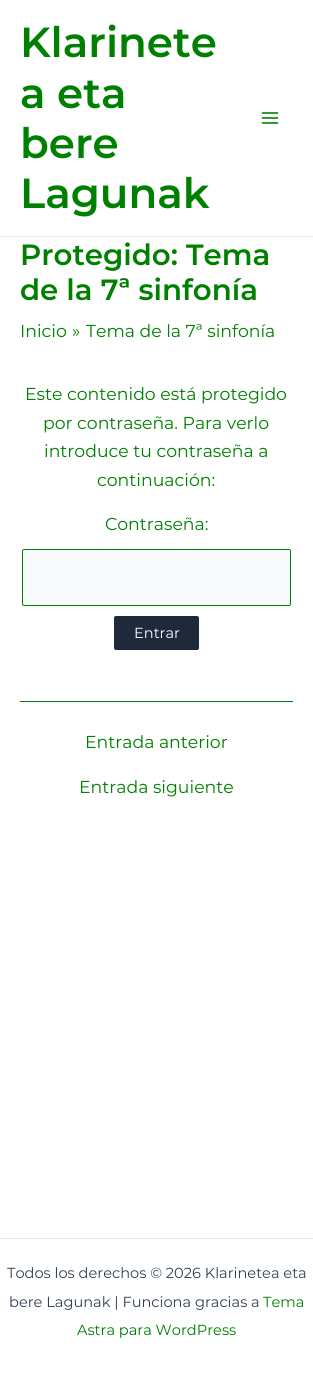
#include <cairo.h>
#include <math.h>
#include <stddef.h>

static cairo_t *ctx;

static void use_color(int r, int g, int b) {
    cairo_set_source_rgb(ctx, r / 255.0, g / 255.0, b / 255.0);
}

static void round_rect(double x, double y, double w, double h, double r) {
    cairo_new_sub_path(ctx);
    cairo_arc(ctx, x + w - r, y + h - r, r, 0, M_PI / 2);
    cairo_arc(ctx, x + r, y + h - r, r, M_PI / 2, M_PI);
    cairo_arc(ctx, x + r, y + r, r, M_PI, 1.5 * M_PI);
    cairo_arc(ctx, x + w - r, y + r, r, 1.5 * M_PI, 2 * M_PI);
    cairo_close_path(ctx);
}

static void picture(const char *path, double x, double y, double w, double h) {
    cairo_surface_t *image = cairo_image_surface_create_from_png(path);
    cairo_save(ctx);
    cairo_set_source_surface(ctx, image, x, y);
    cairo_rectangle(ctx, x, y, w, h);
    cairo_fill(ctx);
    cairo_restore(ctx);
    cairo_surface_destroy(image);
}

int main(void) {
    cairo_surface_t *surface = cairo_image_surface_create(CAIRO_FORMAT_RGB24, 313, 1375);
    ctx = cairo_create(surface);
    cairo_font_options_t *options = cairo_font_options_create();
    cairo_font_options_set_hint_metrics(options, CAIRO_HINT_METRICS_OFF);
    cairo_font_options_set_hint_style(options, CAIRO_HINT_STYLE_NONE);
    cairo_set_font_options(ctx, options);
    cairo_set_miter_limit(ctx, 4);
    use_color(255, 255, 255);
    cairo_paint(ctx);
    use_color(226, 232, 240);
    cairo_rectangle(ctx, 0, 236, 313, 1);
    cairo_fill(ctx);
    cairo_select_font_face(ctx, "Montserrat SemiBold", CAIRO_FONT_SLANT_NORMAL, CAIRO_FONT_WEIGHT_NORMAL);
    cairo_set_font_size(ctx, 42);
    use_color(0, 128, 0);
    cairo_move_to(ctx, 20, 57);
    cairo_show_text(ctx, "Klarinete");
    cairo_move_to(ctx, 20, 108);
    cairo_show_text(ctx, "a eta");
    cairo_move_to(ctx, 20, 158);
    cairo_show_text(ctx, "bere");
    cairo_move_to(ctx, 20, 208);
    cairo_show_text(ctx, "Lagunak");
    picture("img1.png", 261, 112, 18, 12);
    cairo_set_font_size(ctx, 29.25);
    cairo_move_to(ctx, 20, 265);
    cairo_show_text(ctx, "Protegido: Tema");
    cairo_move_to(ctx, 20, 300);
    cairo_show_text(ctx, "de la 7ª sinfonía");
    cairo_select_font_face(ctx, "Montserrat", CAIRO_FONT_SLANT_NORMAL, CAIRO_FONT_WEIGHT_NORMAL);
    cairo_set_font_size(ctx, 17.3);
    cairo_move_to(ctx, 20, 337);
    cairo_show_text(ctx, "Inicio");
    cairo_move_to(ctx, 72, 337);
    cairo_show_text(ctx, "»");
    cairo_move_to(ctx, 86, 337);
    cairo_show_text(ctx, "Tema de la 7ª sinfonía");
    cairo_move_to(ctx, 25, 400);
    cairo_show_text(ctx, "Este contenido está protegido");
    cairo_move_to(ctx, 43, 429);
    cairo_show_text(ctx, "por contraseña. Para verlo");
    cairo_move_to(ctx, 44, 457);
    cairo_show_text(ctx, "introduce tu contraseña a");
    cairo_move_to(ctx, 97, 486);
    cairo_show_text(ctx, "continuación:");
    cairo_move_to(ctx, 105, 530);
    cairo_show_text(ctx, "Contraseña:");
    use_color(249, 250, 251);
    round_rect(22.5, 549.5, 268, 56, 1.5);
    cairo_fill_preserve(ctx);
    use_color(0, 128, 0);
    cairo_set_line_width(ctx, 1);
    cairo_stroke(ctx);
    use_color(30, 41, 59);
    round_rect(114, 616, 85, 34, 2);
    cairo_fill(ctx);
    cairo_set_font_size(ctx, 14.6);
    use_color(255, 255, 255);
    cairo_move_to(ctx, 134, 638);
    cairo_show_text(ctx, "Entrar");
    use_color(0, 128, 0);
    cairo_rectangle(ctx, 20, 701, 273, 1);
    cairo_fill(ctx);
    cairo_set_font_size(ctx, 17.3);
    cairo_move_to(ctx, 85, 748);
    cairo_show_text(ctx, "Entrada anterior");
    cairo_move_to(ctx, 79, 793);
    cairo_show_text(ctx, "Entrada siguiente");
    use_color(226, 232, 240);
    cairo_rectangle(ctx, 0, 1238, 313, 1);
    cairo_fill(ctx);
    cairo_set_font_size(ctx, 14.6);
    use_color(51, 65, 85);
    cairo_move_to(ctx, 7, 1278);
    cairo_show_text(ctx, "Todos los derechos © 2026 Klarinetea eta");
    cairo_move_to(ctx, 9, 1307);
    cairo_show_text(ctx, "bere Lagunak | Funciona gracias a");
    use_color(0, 128, 0);
    cairo_move_to(ctx, 263, 1307);
    cairo_show_text(ctx, "Tema");
    cairo_move_to(ctx, 77, 1335);
    cairo_show_text(ctx, "Astra para WordPress");
    cairo_surface_write_to_png(surface, "result.png");
    cairo_font_options_destroy(options);
    cairo_destroy(ctx);
    cairo_surface_destroy(surface);
    return 0;
}
